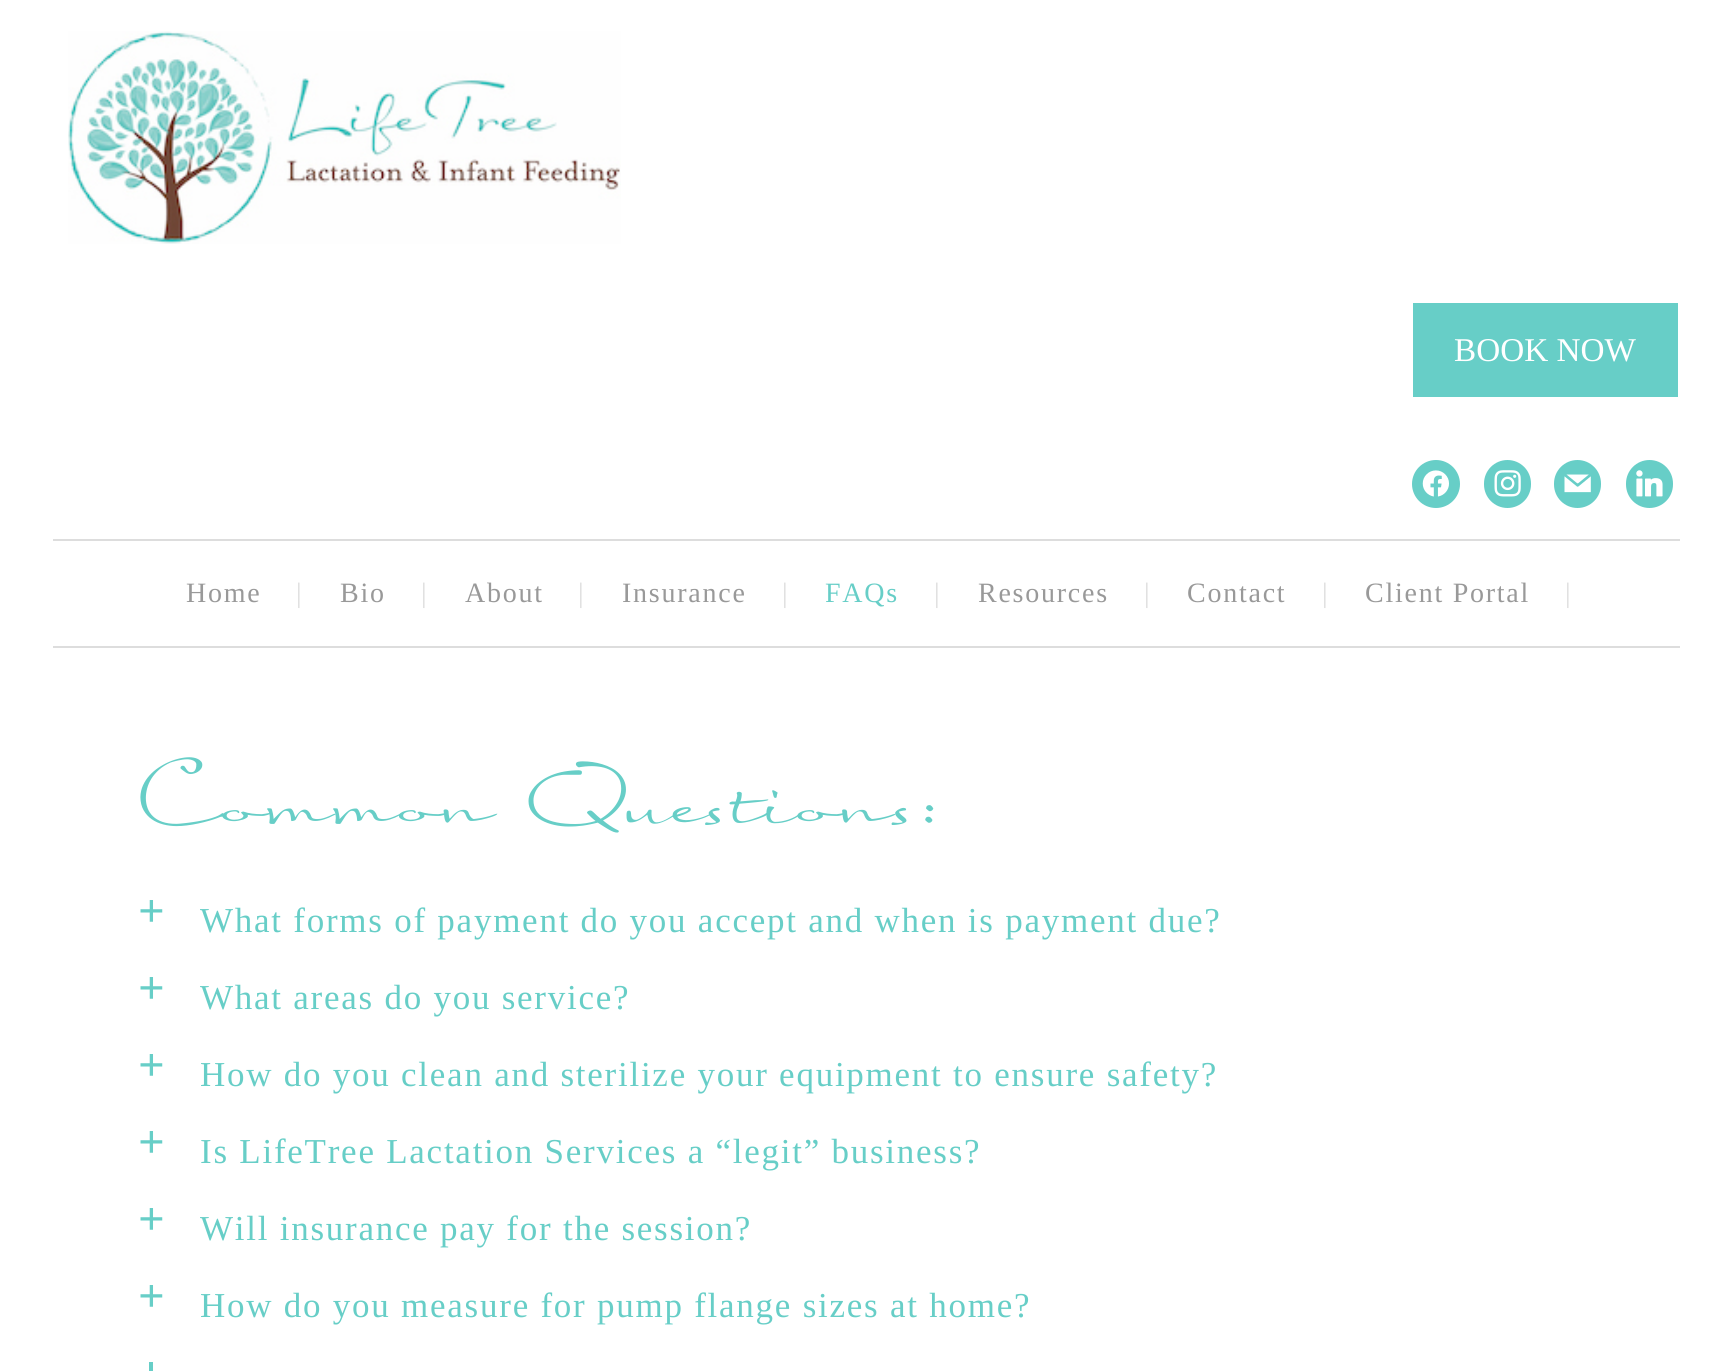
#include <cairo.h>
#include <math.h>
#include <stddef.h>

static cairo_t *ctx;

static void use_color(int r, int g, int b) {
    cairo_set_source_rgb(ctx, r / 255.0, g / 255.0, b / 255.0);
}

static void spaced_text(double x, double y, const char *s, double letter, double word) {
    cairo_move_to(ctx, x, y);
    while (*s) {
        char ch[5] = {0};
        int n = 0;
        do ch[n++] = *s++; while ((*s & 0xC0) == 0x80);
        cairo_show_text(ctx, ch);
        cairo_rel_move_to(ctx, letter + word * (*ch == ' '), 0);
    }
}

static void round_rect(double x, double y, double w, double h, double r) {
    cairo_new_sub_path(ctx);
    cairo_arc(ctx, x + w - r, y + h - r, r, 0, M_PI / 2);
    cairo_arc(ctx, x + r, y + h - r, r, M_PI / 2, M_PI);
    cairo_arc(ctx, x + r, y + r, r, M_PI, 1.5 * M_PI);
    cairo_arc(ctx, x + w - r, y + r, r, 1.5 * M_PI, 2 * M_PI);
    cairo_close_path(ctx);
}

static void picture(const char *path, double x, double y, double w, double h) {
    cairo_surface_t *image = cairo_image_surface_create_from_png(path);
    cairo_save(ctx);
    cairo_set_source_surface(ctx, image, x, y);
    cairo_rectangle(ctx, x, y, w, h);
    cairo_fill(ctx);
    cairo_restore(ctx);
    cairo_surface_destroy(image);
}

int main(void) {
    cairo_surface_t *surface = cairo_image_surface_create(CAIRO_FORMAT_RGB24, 1732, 1371);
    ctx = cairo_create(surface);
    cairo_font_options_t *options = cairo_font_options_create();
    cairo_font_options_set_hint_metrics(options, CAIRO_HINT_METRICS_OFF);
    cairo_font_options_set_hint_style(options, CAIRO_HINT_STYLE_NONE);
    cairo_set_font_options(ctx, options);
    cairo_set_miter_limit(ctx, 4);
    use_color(255, 255, 255);
    cairo_paint(ctx);
    picture("img1.png", 68, 31, 553, 213);
    use_color(103, 206, 199);
    cairo_rectangle(ctx, 1413, 303, 265, 94);
    cairo_fill(ctx);
    cairo_select_font_face(ctx, "Liberation Serif", CAIRO_FONT_SLANT_NORMAL, CAIRO_FONT_WEIGHT_NORMAL);
    cairo_set_font_size(ctx, 33.25);
    use_color(255, 255, 255);
    cairo_move_to(ctx, 1454, 361);
    cairo_show_text(ctx, "BOOK NOW");
    use_color(103, 206, 199);
    cairo_new_path(ctx);
    cairo_arc(ctx, 1436, 484, 24, 0, 2 * M_PI);
    cairo_fill(ctx);
    picture("img2.png", 1422, 470, 27, 27);
    round_rect(1484, 460, 47, 48, 23.5);
    cairo_fill(ctx);
    picture("img3.png", 1494, 470, 27, 27);
    round_rect(1554, 460, 47, 48, 23.5);
    cairo_fill(ctx);
    picture("img4.png", 1564, 474, 27, 19);
    round_rect(1626, 460, 47, 48, 23.5);
    cairo_fill(ctx);
    picture("img5.png", 1636, 470, 27, 27);
    use_color(221, 221, 221);
    cairo_rectangle(ctx, 53, 539, 1627, 2);
    cairo_fill(ctx);
    cairo_rectangle(ctx, 53, 646, 1627, 2);
    cairo_fill(ctx);
    cairo_set_font_size(ctx, 28);
    use_color(153, 153, 153);
    spaced_text(186, 602, "Home", 1.75, 0);
    use_color(221, 221, 221);
    spaced_text(296, 602, "|", 1.75, 0);
    use_color(153, 153, 153);
    spaced_text(340, 602, "Bio", 1.75, 0);
    use_color(221, 221, 221);
    spaced_text(421, 602, "|", 1.75, 0);
    use_color(153, 153, 153);
    spaced_text(465, 602, "About", 1.75, 0);
    use_color(221, 221, 221);
    spaced_text(578, 602, "|", 1.75, 0);
    use_color(153, 153, 153);
    spaced_text(622, 602, "Insurance", 1.75, 0);
    use_color(221, 221, 221);
    spaced_text(782, 602, "|", 1.75, 0);
    use_color(103, 206, 199);
    spaced_text(825, 602, "FAQs", 1.75, 0);
    use_color(221, 221, 221);
    spaced_text(934, 602, "|", 1.75, 0);
    use_color(153, 153, 153);
    spaced_text(978, 602, "Resources", 1.75, 0);
    use_color(221, 221, 221);
    spaced_text(1144, 602, "|", 1.75, 0);
    use_color(153, 153, 153);
    spaced_text(1187, 602, "Contact", 1.75, 0);
    use_color(221, 221, 221);
    spaced_text(1322, 602, "|", 1.75, 0);
    use_color(153, 153, 153);
    spaced_text(1365, 602, "Client Portal", 1.75, 0);
    use_color(221, 221, 221);
    spaced_text(1565, 602, "|", 1.75, 0);
    cairo_select_font_face(ctx, "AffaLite", CAIRO_FONT_SLANT_NORMAL, CAIRO_FONT_WEIGHT_NORMAL);
    cairo_set_font_size(ctx, 84);
    use_color(103, 206, 199);
    spaced_text(134, 823, "Common Questions:", 1.75, 0);
    picture("img6.png", 140, 900, 23, 22);
    cairo_select_font_face(ctx, "Liberation Serif", CAIRO_FONT_SLANT_NORMAL, CAIRO_FONT_WEIGHT_NORMAL);
    cairo_set_font_size(ctx, 35);
    spaced_text(200, 932, "What forms of payment do you accept and when is payment due?", 1.75, 0);
    picture("img6.png", 140, 977, 23, 22);
    spaced_text(200, 1009, "What areas do you service?", 1.75, 0);
    picture("img6.png", 140, 1054, 23, 22);
    spaced_text(200, 1086, "How do you clean and sterilize your equipment to ensure safety?", 1.75, 0);
    picture("img6.png", 140, 1131, 23, 22);
    spaced_text(200, 1163, "Is LifeTree Lactation Services a “legit” business?", 1.75, 0);
    picture("img6.png", 140, 1208, 23, 22);
    spaced_text(200, 1240, "Will insurance pay for the session?", 1.75, 0);
    picture("img6.png", 140, 1285, 23, 22);
    spaced_text(200, 1317, "How do you measure for pump flange sizes at home?", 1.75, 0);
    cairo_rectangle(ctx, 149, 1362, 4, 9);
    cairo_fill(ctx);
    cairo_surface_write_to_png(surface, "result.png");
    cairo_font_options_destroy(options);
    cairo_destroy(ctx);
    cairo_surface_destroy(surface);
    return 0;
}
